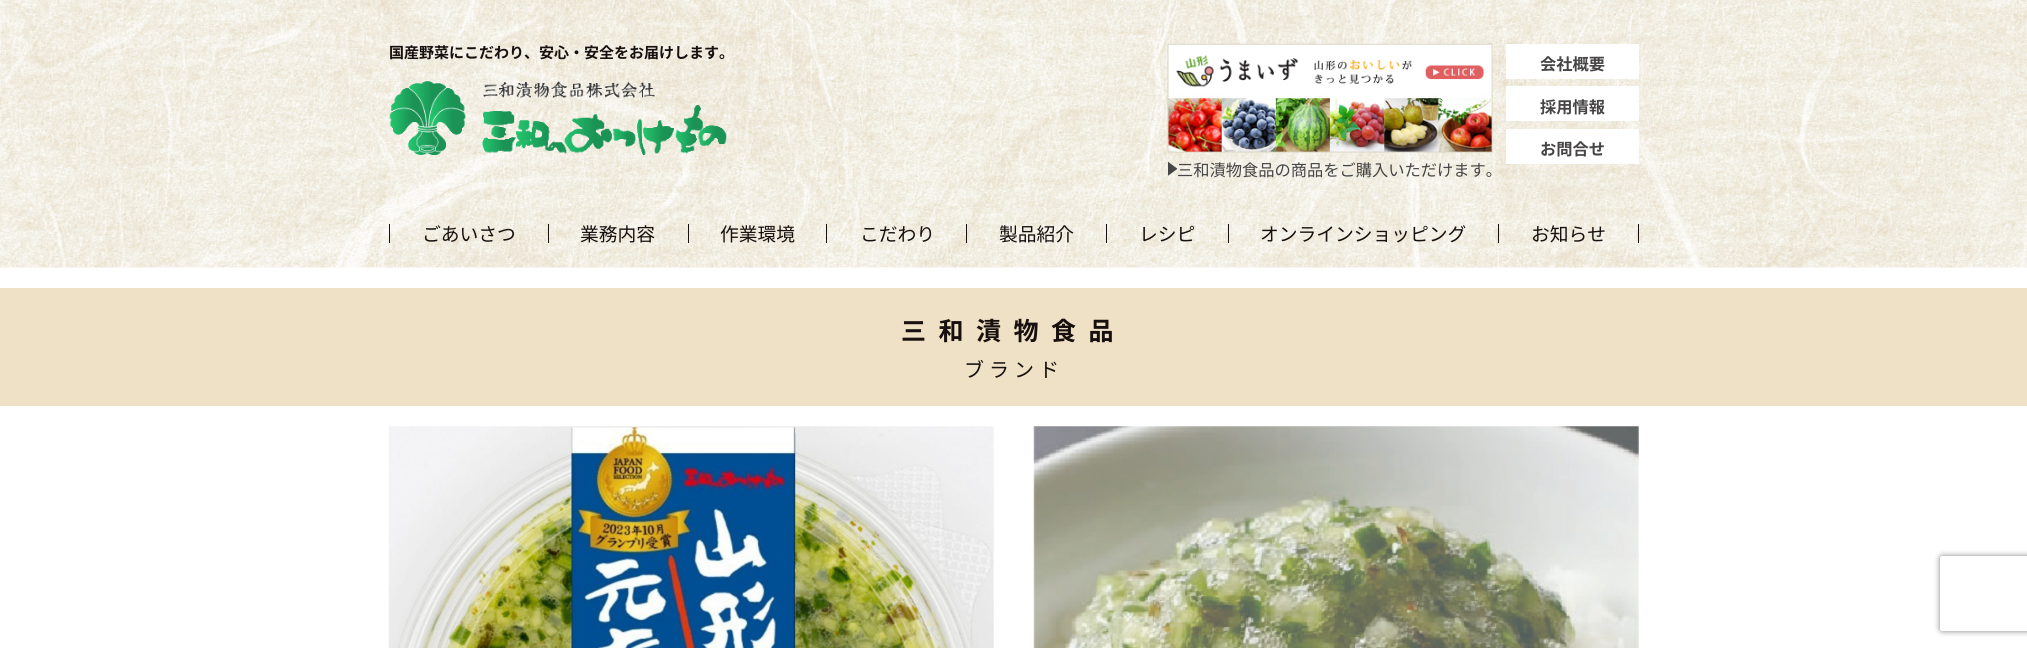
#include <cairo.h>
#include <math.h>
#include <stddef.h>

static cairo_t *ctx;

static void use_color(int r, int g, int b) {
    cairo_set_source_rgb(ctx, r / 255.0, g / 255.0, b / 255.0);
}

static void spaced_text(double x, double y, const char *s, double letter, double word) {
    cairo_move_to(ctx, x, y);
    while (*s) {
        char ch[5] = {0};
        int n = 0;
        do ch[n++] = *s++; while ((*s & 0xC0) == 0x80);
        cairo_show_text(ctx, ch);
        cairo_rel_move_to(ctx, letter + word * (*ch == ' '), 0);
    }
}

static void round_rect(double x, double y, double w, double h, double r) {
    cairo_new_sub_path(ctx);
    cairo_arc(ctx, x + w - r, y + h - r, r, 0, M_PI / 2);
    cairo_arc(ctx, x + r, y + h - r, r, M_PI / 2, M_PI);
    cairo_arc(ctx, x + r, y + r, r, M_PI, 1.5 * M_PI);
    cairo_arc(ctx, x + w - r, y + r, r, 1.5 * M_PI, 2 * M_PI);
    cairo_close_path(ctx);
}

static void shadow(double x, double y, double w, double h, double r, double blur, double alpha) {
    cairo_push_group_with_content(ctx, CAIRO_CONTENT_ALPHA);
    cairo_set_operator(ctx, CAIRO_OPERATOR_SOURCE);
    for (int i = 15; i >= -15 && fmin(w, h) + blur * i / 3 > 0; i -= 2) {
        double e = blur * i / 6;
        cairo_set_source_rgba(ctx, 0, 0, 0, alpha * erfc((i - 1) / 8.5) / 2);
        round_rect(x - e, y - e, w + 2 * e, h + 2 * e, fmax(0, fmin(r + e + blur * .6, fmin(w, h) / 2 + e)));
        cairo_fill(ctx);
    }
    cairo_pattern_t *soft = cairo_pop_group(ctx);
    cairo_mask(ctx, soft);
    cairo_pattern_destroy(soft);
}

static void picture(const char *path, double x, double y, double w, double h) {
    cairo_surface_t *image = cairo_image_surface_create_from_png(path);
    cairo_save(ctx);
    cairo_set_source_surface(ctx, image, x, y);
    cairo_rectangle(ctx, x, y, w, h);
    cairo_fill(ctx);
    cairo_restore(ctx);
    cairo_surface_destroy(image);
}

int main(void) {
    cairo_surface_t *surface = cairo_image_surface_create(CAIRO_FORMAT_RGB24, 2027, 648);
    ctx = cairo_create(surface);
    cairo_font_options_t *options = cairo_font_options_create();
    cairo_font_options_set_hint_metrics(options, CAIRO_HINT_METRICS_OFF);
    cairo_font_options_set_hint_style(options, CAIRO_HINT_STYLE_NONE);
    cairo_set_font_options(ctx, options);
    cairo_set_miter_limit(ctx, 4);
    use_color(255, 255, 255);
    cairo_paint(ctx);
    picture("img1.png", 0, 0, 2027, 268);
    cairo_select_font_face(ctx, "Noto Sans JP", CAIRO_FONT_SLANT_NORMAL, CAIRO_FONT_WEIGHT_BOLD);
    cairo_set_font_size(ctx, 15);
    use_color(23, 16, 14);
    cairo_move_to(ctx, 389, 58);
    cairo_show_text(ctx, "国産野菜にこだわり、安心・安全をお届けします。");
    picture("img2.png", 389, 81, 338, 74);
    use_color(255, 255, 255);
    cairo_rectangle(ctx, 1506, 44, 133, 35);
    cairo_fill(ctx);
    cairo_set_font_size(ctx, 16.25);
    use_color(71, 69, 69);
    cairo_move_to(ctx, 1540, 70);
    cairo_show_text(ctx, "会社概要");
    use_color(255, 255, 255);
    cairo_rectangle(ctx, 1506, 86, 133, 35);
    cairo_fill(ctx);
    use_color(71, 69, 69);
    cairo_move_to(ctx, 1540, 113);
    cairo_show_text(ctx, "採用情報");
    use_color(255, 255, 255);
    cairo_rectangle(ctx, 1506, 129, 133, 35);
    cairo_fill(ctx);
    use_color(71, 69, 69);
    cairo_move_to(ctx, 1540, 155);
    cairo_show_text(ctx, "お問合せ");
    picture("img3.png", 1167, 43, 326, 110);
    picture("img4.png", 1168, 161, 10, 15);
    cairo_select_font_face(ctx, "Noto Sans JP", CAIRO_FONT_SLANT_NORMAL, CAIRO_FONT_WEIGHT_NORMAL);
    cairo_move_to(ctx, 1177, 176);
    cairo_show_text(ctx, "三和漬物食品の商品をご購入いただけます。");
    use_color(23, 16, 14);
    cairo_rectangle(ctx, 389, 224, 1, 19);
    cairo_fill(ctx);
    cairo_set_font_size(ctx, 18.75);
    cairo_move_to(ctx, 422, 241);
    cairo_show_text(ctx, "ごあいさつ");
    cairo_rectangle(ctx, 548, 224, 1, 19);
    cairo_fill(ctx);
    cairo_move_to(ctx, 580, 241);
    cairo_show_text(ctx, "業務内容");
    cairo_rectangle(ctx, 688, 224, 1, 19);
    cairo_fill(ctx);
    cairo_move_to(ctx, 720, 241);
    cairo_show_text(ctx, "作業環境");
    cairo_rectangle(ctx, 826, 224, 1, 19);
    cairo_fill(ctx);
    cairo_move_to(ctx, 860, 241);
    cairo_show_text(ctx, "こだわり");
    cairo_rectangle(ctx, 966, 224, 1, 19);
    cairo_fill(ctx);
    cairo_move_to(ctx, 999, 241);
    cairo_show_text(ctx, "製品紹介");
    cairo_rectangle(ctx, 1106, 224, 1, 19);
    cairo_fill(ctx);
    cairo_move_to(ctx, 1139, 241);
    cairo_show_text(ctx, "レシピ");
    cairo_rectangle(ctx, 1228, 224, 1, 19);
    cairo_fill(ctx);
    cairo_move_to(ctx, 1260, 241);
    cairo_show_text(ctx, "オンラインショッピング");
    cairo_rectangle(ctx, 1638, 224, 1, 19);
    cairo_fill(ctx);
    cairo_rectangle(ctx, 1498, 224, 1, 19);
    cairo_fill(ctx);
    cairo_move_to(ctx, 1531, 241);
    cairo_show_text(ctx, "お知らせ");
    use_color(239, 225, 197);
    cairo_rectangle(ctx, 0, 288, 2027, 118);
    cairo_fill(ctx);
    cairo_select_font_face(ctx, "Noto Sans JP", CAIRO_FONT_SLANT_NORMAL, CAIRO_FONT_WEIGHT_BOLD);
    cairo_set_font_size(ctx, 25);
    use_color(23, 16, 14);
    spaced_text(901, 340, "三和漬物食品", 12.5, 0);
    cairo_select_font_face(ctx, "Noto Sans JP", CAIRO_FONT_SLANT_NORMAL, CAIRO_FONT_WEIGHT_NORMAL);
    cairo_set_font_size(ctx, 20);
    spaced_text(964, 377, "ブランド", 5, 0);
    picture("img5.png", 388, 426, 606, 222);
    picture("img6.png", 1033, 426, 606, 222);
    cairo_save(ctx);
    cairo_set_fill_rule(ctx, CAIRO_FILL_RULE_EVEN_ODD);
    cairo_new_path(ctx);
    cairo_move_to(ctx, 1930, 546);
    cairo_line_to(ctx, 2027, 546);
    cairo_line_to(ctx, 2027, 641);
    cairo_line_to(ctx, 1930, 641);
    cairo_close_path(ctx);
    cairo_move_to(ctx, 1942.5, 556);
    cairo_line_to(ctx, 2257.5, 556);
    cairo_curve_to(ctx, 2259, 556, 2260, 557, 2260, 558.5);
    cairo_line_to(ctx, 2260, 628.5);
    cairo_curve_to(ctx, 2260, 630, 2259, 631, 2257.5, 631);
    cairo_line_to(ctx, 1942.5, 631);
    cairo_curve_to(ctx, 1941, 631, 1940, 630, 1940, 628.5);
    cairo_line_to(ctx, 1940, 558.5);
    cairo_curve_to(ctx, 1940, 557, 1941, 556, 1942.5, 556);
    cairo_close_path(ctx);
    cairo_clip(ctx);
    use_color(128, 128, 128);
    shadow(1940, 556, 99, 75, 2.5, 3, 1);
    cairo_restore(ctx);
    cairo_surface_write_to_png(surface, "result.png");
    cairo_font_options_destroy(options);
    cairo_destroy(ctx);
    cairo_surface_destroy(surface);
    return 0;
}
